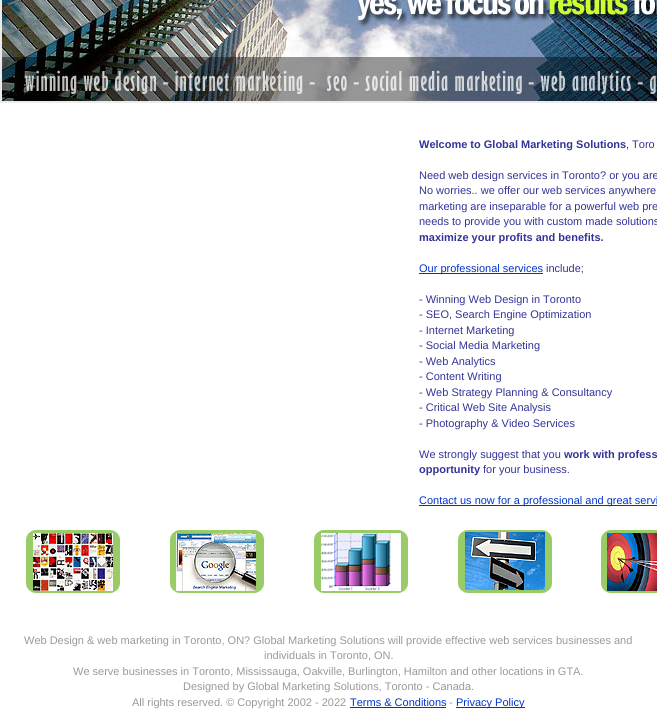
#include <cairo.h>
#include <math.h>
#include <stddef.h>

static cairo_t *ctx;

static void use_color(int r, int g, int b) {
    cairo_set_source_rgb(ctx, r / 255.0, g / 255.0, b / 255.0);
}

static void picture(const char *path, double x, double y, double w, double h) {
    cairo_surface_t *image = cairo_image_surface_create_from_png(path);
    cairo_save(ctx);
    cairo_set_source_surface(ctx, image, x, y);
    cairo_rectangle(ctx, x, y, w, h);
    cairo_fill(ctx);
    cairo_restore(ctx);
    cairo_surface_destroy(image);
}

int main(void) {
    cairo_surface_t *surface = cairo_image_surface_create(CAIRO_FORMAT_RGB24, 657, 721);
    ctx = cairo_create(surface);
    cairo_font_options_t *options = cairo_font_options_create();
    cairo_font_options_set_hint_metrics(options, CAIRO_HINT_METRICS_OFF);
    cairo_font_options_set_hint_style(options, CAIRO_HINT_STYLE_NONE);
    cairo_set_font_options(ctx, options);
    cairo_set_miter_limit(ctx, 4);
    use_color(255, 255, 255);
    cairo_paint(ctx);
    cairo_rectangle(ctx, 0.5, -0.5, 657, 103);
    use_color(235, 235, 235);
    cairo_set_line_width(ctx, 1);
    cairo_stroke(ctx);
    cairo_rectangle(ctx, 1.5, -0.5, 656, 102);
    cairo_stroke(ctx);
    picture("img1.png", 2, 0, 655, 101);
    cairo_select_font_face(ctx, "Liberation Sans", CAIRO_FONT_SLANT_NORMAL, CAIRO_FONT_WEIGHT_BOLD);
    cairo_set_font_size(ctx, 11);
    use_color(51, 51, 153);
    cairo_move_to(ctx, 419, 148);
    cairo_show_text(ctx, "Welcome to Global Marketing Solutions");
    cairo_select_font_face(ctx, "Liberation Sans", CAIRO_FONT_SLANT_NORMAL, CAIRO_FONT_WEIGHT_NORMAL);
    cairo_move_to(ctx, 626, 148);
    cairo_show_text(ctx, ", Toro");
    cairo_move_to(ctx, 419, 179);
    cairo_show_text(ctx, "Need web design services in Toronto? or you are");
    cairo_move_to(ctx, 419, 194);
    cairo_show_text(ctx, "No worries.. we offer our web services anywhere");
    cairo_move_to(ctx, 419, 210);
    cairo_show_text(ctx, "marketing are inseparable for a powerful web pre");
    cairo_move_to(ctx, 419, 225);
    cairo_show_text(ctx, "needs to provide you with custom made solutions");
    cairo_select_font_face(ctx, "Liberation Sans", CAIRO_FONT_SLANT_NORMAL, CAIRO_FONT_WEIGHT_BOLD);
    cairo_move_to(ctx, 419, 241);
    cairo_show_text(ctx, "maximize your profits and benefits.");
    use_color(0, 51, 204);
    cairo_rectangle(ctx, 419, 273, 124, 1);
    cairo_fill(ctx);
    cairo_select_font_face(ctx, "Liberation Sans", CAIRO_FONT_SLANT_NORMAL, CAIRO_FONT_WEIGHT_NORMAL);
    cairo_move_to(ctx, 419, 272);
    cairo_show_text(ctx, "Our professional services");
    use_color(51, 51, 153);
    cairo_move_to(ctx, 546, 272);
    cairo_show_text(ctx, "include;");
    cairo_move_to(ctx, 419, 303);
    cairo_show_text(ctx, "- Winning Web Design in Toronto");
    cairo_move_to(ctx, 419, 318);
    cairo_show_text(ctx, "- SEO, Search Engine Optimization");
    cairo_move_to(ctx, 419, 334);
    cairo_show_text(ctx, "- Internet Marketing");
    cairo_move_to(ctx, 419, 349);
    cairo_show_text(ctx, "- Social Media Marketing");
    cairo_move_to(ctx, 419, 365);
    cairo_show_text(ctx, "- Web Analytics");
    cairo_move_to(ctx, 419, 380);
    cairo_show_text(ctx, "- Content Writing");
    cairo_move_to(ctx, 419, 396);
    cairo_show_text(ctx, "- Web Strategy Planning & Consultancy");
    cairo_move_to(ctx, 419, 411);
    cairo_show_text(ctx, "- Critical Web Site Analysis");
    cairo_move_to(ctx, 419, 427);
    cairo_show_text(ctx, "- Photography & Video Services");
    cairo_move_to(ctx, 419, 458);
    cairo_show_text(ctx, "We strongly suggest that you");
    cairo_select_font_face(ctx, "Liberation Sans", CAIRO_FONT_SLANT_NORMAL, CAIRO_FONT_WEIGHT_BOLD);
    cairo_move_to(ctx, 564, 458);
    cairo_show_text(ctx, "work with profess");
    cairo_move_to(ctx, 419, 473);
    cairo_show_text(ctx, "opportunity");
    cairo_select_font_face(ctx, "Liberation Sans", CAIRO_FONT_SLANT_NORMAL, CAIRO_FONT_WEIGHT_NORMAL);
    cairo_move_to(ctx, 483, 473);
    cairo_show_text(ctx, "for your business.");
    use_color(0, 51, 204);
    cairo_rectangle(ctx, 419, 505, 238, 1);
    cairo_fill(ctx);
    cairo_move_to(ctx, 419, 504);
    cairo_show_text(ctx, "Contact us now for a professional and great servi");
    picture("img2.png", 26, 530, 94, 63);
    picture("img3.png", 170, 530, 94, 63);
    picture("img4.png", 314, 530, 94, 63);
    picture("img5.png", 458, 530, 94, 63);
    picture("img6.png", 601, 530, 56, 63);
    use_color(153, 153, 153);
    cairo_move_to(ctx, 24, 644);
    cairo_show_text(ctx, "Web Design & web marketing in Toronto, ON? Global Marketing Solutions will provide effective web services businesses and");
    cairo_move_to(ctx, 264, 659);
    cairo_show_text(ctx, "individuals in Toronto, ON.");
    cairo_move_to(ctx, 73, 675);
    cairo_show_text(ctx, "We serve businesses in Toronto, Mississauga, Oakville, Burlington, Hamilton and other locations in GTA.");
    cairo_move_to(ctx, 183, 690);
    cairo_show_text(ctx, "Designed by Global Marketing Solutions, Toronto - Canada.");
    cairo_move_to(ctx, 132, 706);
    cairo_show_text(ctx, "All rights reserved. © Copyright 2002 - 2022");
    use_color(0, 51, 204);
    cairo_move_to(ctx, 350, 706);
    cairo_show_text(ctx, "Terms & Conditions");
    cairo_rectangle(ctx, 350, 707, 96, 1);
    cairo_fill(ctx);
    use_color(153, 153, 153);
    cairo_move_to(ctx, 449, 706);
    cairo_show_text(ctx, "-");
    use_color(0, 51, 204);
    cairo_rectangle(ctx, 456, 707, 69, 1);
    cairo_fill(ctx);
    cairo_move_to(ctx, 456, 706);
    cairo_show_text(ctx, "Privacy Policy");
    cairo_surface_write_to_png(surface, "result.png");
    cairo_font_options_destroy(options);
    cairo_destroy(ctx);
    cairo_surface_destroy(surface);
    return 0;
}
